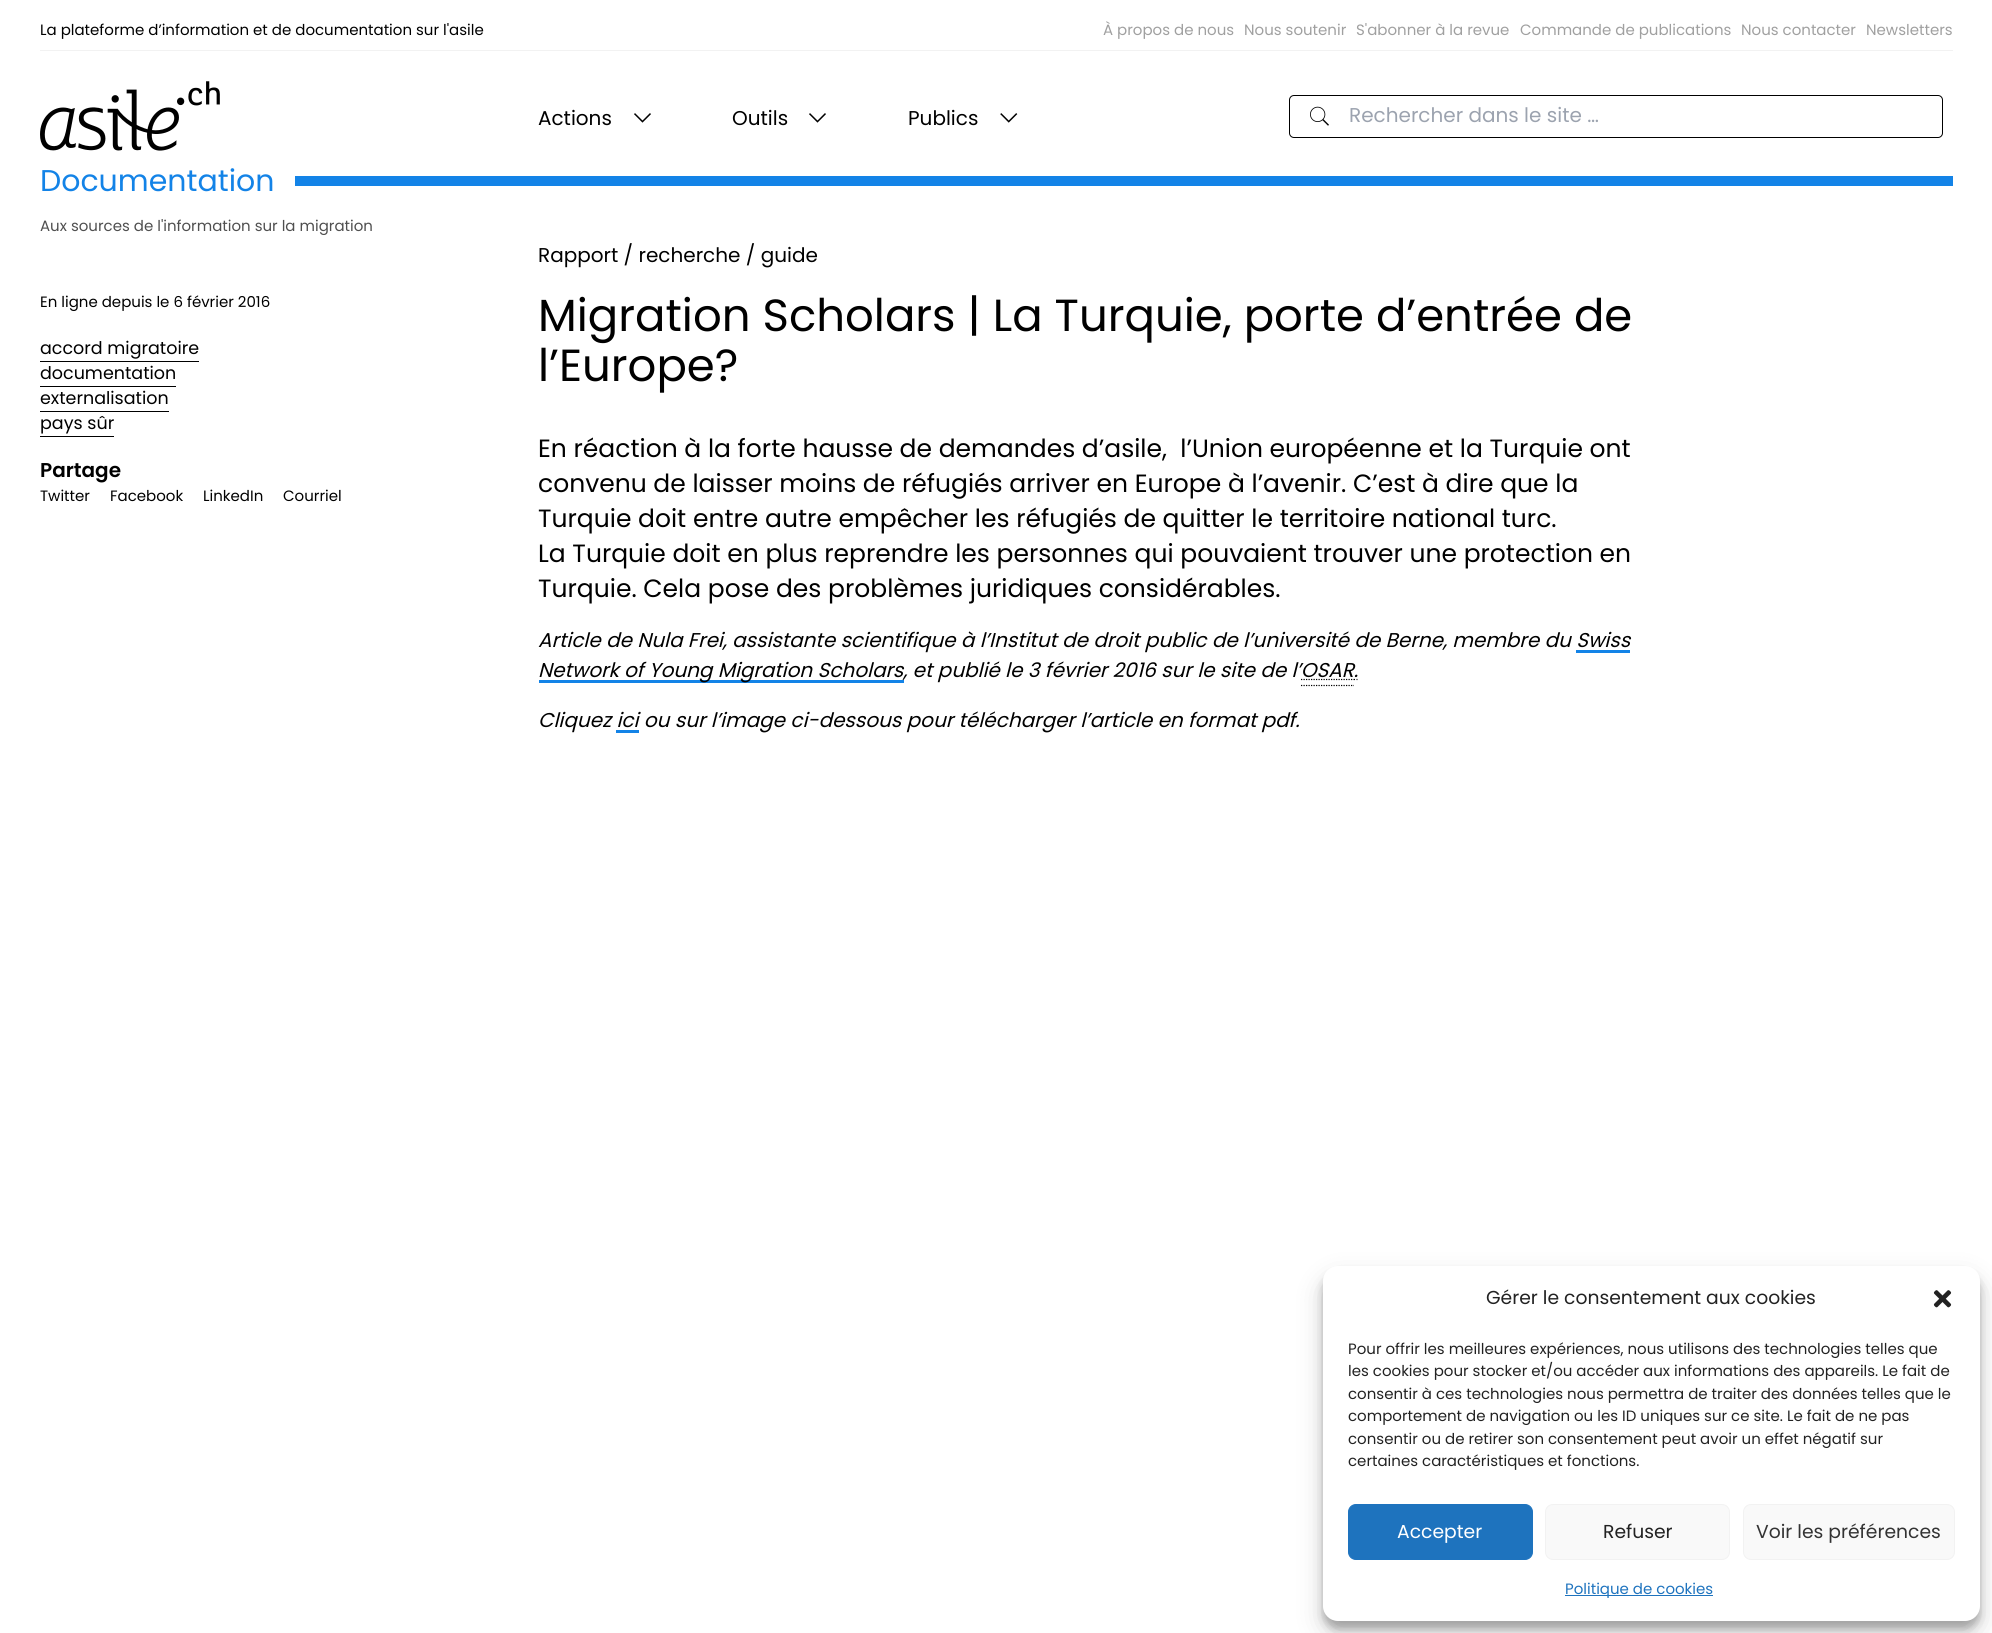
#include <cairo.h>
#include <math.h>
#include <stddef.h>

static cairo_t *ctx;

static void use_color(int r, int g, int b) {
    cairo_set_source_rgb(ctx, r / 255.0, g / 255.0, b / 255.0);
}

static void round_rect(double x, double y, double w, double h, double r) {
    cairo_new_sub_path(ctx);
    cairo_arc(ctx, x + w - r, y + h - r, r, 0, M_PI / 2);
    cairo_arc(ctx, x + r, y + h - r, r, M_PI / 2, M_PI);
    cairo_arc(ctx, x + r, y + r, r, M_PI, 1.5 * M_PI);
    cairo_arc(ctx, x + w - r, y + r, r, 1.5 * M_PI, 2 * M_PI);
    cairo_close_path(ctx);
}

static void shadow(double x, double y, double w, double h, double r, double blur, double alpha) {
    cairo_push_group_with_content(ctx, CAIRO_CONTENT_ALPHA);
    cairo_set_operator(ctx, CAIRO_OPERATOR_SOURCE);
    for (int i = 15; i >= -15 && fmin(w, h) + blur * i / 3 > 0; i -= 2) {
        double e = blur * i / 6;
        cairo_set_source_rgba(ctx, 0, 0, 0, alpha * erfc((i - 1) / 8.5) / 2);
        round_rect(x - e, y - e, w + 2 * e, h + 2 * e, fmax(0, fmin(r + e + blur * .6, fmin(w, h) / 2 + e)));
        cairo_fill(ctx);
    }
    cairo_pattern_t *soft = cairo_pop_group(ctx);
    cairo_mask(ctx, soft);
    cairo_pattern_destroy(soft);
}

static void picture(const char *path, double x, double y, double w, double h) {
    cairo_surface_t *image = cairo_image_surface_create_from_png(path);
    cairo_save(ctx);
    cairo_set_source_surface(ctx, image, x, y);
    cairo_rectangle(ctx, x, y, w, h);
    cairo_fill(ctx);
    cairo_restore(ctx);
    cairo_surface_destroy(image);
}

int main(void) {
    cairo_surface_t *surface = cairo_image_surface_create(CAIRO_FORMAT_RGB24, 1992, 1633);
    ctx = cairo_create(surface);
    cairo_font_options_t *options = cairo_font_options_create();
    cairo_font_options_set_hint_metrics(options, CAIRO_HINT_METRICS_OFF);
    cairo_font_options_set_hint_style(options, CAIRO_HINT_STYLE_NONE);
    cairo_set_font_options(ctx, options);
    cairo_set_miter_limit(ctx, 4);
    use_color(255, 255, 255);
    cairo_paint(ctx);
    use_color(242, 242, 242);
    cairo_rectangle(ctx, 40, 50, 1913, 1);
    cairo_fill(ctx);
    cairo_select_font_face(ctx, "Poppins", CAIRO_FONT_SLANT_NORMAL, CAIRO_FONT_WEIGHT_NORMAL);
    cairo_set_font_size(ctx, 15);
    use_color(0, 0, 0);
    cairo_move_to(ctx, 40, 35);
    cairo_show_text(ctx, "La plateforme d’information et de documentation sur l'asile");
    use_color(160, 160, 160);
    cairo_move_to(ctx, 1103, 35);
    cairo_show_text(ctx, "À propos de nous");
    cairo_move_to(ctx, 1244, 35);
    cairo_show_text(ctx, "Nous soutenir");
    cairo_move_to(ctx, 1356, 35);
    cairo_show_text(ctx, "S'abonner à la revue");
    cairo_move_to(ctx, 1520, 35);
    cairo_show_text(ctx, "Commande de publications");
    cairo_move_to(ctx, 1741, 35);
    cairo_show_text(ctx, "Nous contacter");
    cairo_move_to(ctx, 1866, 35);
    cairo_show_text(ctx, "Newsletters");
    picture("img1.png", 40, 81, 180, 70);
    cairo_set_font_size(ctx, 20);
    use_color(0, 0, 0);
    cairo_move_to(ctx, 538, 125);
    cairo_show_text(ctx, "Actions");
    picture("img2.png", 634, 113, 17, 10);
    cairo_move_to(ctx, 732, 125);
    cairo_show_text(ctx, "Outils");
    picture("img2.png", 809, 113, 17, 10);
    cairo_move_to(ctx, 908, 125);
    cairo_show_text(ctx, "Publics");
    picture("img3.png", 1000, 113, 18, 10);
    round_rect(1289.5, 95.5, 653, 42, 4.5);
    cairo_set_line_width(ctx, 1);
    cairo_stroke(ctx);
    picture("img4.png", 1310, 106, 19, 20);
    use_color(156, 163, 175);
    cairo_move_to(ctx, 1349, 122);
    cairo_show_text(ctx, "Rechercher dans le site …");
    cairo_set_font_size(ctx, 30);
    use_color(19, 131, 231);
    cairo_move_to(ctx, 40, 191);
    cairo_show_text(ctx, "Documentation");
    cairo_rectangle(ctx, 295, 176, 1658, 10);
    cairo_fill(ctx);
    cairo_set_font_size(ctx, 15);
    use_color(79, 79, 79);
    cairo_move_to(ctx, 40, 231);
    cairo_show_text(ctx, "Aux sources de l'information sur la migration");
    use_color(0, 0, 0);
    cairo_move_to(ctx, 40, 307);
    cairo_show_text(ctx, "En ligne depuis le 6 février 2016");
    cairo_set_font_size(ctx, 17.5);
    cairo_move_to(ctx, 40, 354);
    cairo_show_text(ctx, "accord migratoire");
    cairo_rectangle(ctx, 40, 361, 159, 1);
    cairo_fill(ctx);
    cairo_move_to(ctx, 40, 379);
    cairo_show_text(ctx, "documentation");
    cairo_rectangle(ctx, 40, 386, 136, 1);
    cairo_fill(ctx);
    cairo_move_to(ctx, 40, 404);
    cairo_show_text(ctx, "externalisation");
    cairo_rectangle(ctx, 40, 411, 129, 1);
    cairo_fill(ctx);
    cairo_move_to(ctx, 40, 429);
    cairo_show_text(ctx, "pays sûr");
    cairo_rectangle(ctx, 40, 436, 74, 1);
    cairo_fill(ctx);
    cairo_select_font_face(ctx, "Poppins SemiBold", CAIRO_FONT_SLANT_NORMAL, CAIRO_FONT_WEIGHT_NORMAL);
    cairo_set_font_size(ctx, 20);
    cairo_move_to(ctx, 40, 477);
    cairo_show_text(ctx, "Partage");
    cairo_select_font_face(ctx, "Poppins", CAIRO_FONT_SLANT_NORMAL, CAIRO_FONT_WEIGHT_NORMAL);
    cairo_set_font_size(ctx, 15);
    cairo_move_to(ctx, 40, 501);
    cairo_show_text(ctx, "Twitter");
    cairo_move_to(ctx, 110, 501);
    cairo_show_text(ctx, "Facebook");
    cairo_move_to(ctx, 203, 501);
    cairo_show_text(ctx, "LinkedIn");
    cairo_move_to(ctx, 283, 501);
    cairo_show_text(ctx, "Courriel");
    cairo_set_font_size(ctx, 20);
    cairo_move_to(ctx, 538, 262);
    cairo_show_text(ctx, "Rapport / recherche / guide");
    cairo_set_font_size(ctx, 45);
    cairo_move_to(ctx, 538, 331);
    cairo_show_text(ctx, "Migration Scholars | La Turquie, porte d’entrée de");
    cairo_move_to(ctx, 538, 381);
    cairo_show_text(ctx, "l’Europe?");
    cairo_set_font_size(ctx, 25);
    cairo_move_to(ctx, 538, 457);
    cairo_show_text(ctx, "En réaction à la forte hausse de demandes d’asile,  l’Union européenne et la Turquie ont");
    cairo_move_to(ctx, 538, 492);
    cairo_show_text(ctx, "convenu de laisser moins de réfugiés arriver en Europe à l’avenir. C’est à dire que la");
    cairo_move_to(ctx, 538, 527);
    cairo_show_text(ctx, "Turquie doit entre autre empêcher les réfugiés de quitter le territoire national turc.");
    cairo_move_to(ctx, 538, 562);
    cairo_show_text(ctx, "La Turquie doit en plus reprendre les personnes qui pouvaient trouver une protection en");
    cairo_move_to(ctx, 538, 597);
    cairo_show_text(ctx, "Turquie. Cela pose des problèmes juridiques considérables.");
    cairo_select_font_face(ctx, "Poppins", CAIRO_FONT_SLANT_ITALIC, CAIRO_FONT_WEIGHT_NORMAL);
    cairo_set_font_size(ctx, 20);
    cairo_move_to(ctx, 538, 647);
    cairo_show_text(ctx, "Article de Nula Frei, assistante scientifique à l’Institut de droit public de l’université de Berne, membre du Swiss");
    use_color(19, 131, 231);
    cairo_rectangle(ctx, 1576, 650, 54, 3);
    cairo_fill(ctx);
    cairo_rectangle(ctx, 539, 680, 365, 3);
    cairo_fill(ctx);
    use_color(0, 0, 0);
    cairo_move_to(ctx, 538, 677);
    cairo_show_text(ctx, "Network of Young Migration Scholars, et publié le 3 février 2016 sur le site de l’OSAR.");
    cairo_new_path(ctx);
    cairo_move_to(ctx, 1301, 685.5);
    cairo_line_to(ctx, 1354, 685.5);
    cairo_move_to(ctx, 1301, 679.5);
    cairo_line_to(ctx, 1354, 679.5);
    cairo_set_line_width(ctx, 1.2);
    cairo_set_dash(ctx, (double[]){1.25, 1.25}, 2, 0);
    cairo_stroke(ctx);
    cairo_new_path(ctx);
    cairo_move_to(ctx, 1354, 679.5);
    cairo_line_to(ctx, 1355, 679.5);
    cairo_move_to(ctx, 1356.5, 679.5);
    cairo_line_to(ctx, 1357.5, 679.5);
    cairo_set_dash(ctx, NULL, 0, 0);
    cairo_stroke(ctx);
    cairo_move_to(ctx, 538, 727);
    cairo_show_text(ctx, "Cliquez ici ou sur l’image ci-dessous pour télécharger l’article en format pdf.");
    use_color(19, 131, 231);
    cairo_rectangle(ctx, 616, 730, 23, 3);
    cairo_fill(ctx);
    use_color(0, 0, 0);
    shadow(1323, 1274, 657, 355, 15, 4, 0.23);
    shadow(1323, 1279, 657, 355, 15, 12.5, 0.19);
    use_color(255, 255, 255);
    round_rect(1323, 1266, 657, 355, 15);
    cairo_fill(ctx);
    cairo_select_font_face(ctx, "Poppins", CAIRO_FONT_SLANT_NORMAL, CAIRO_FONT_WEIGHT_NORMAL);
    cairo_set_font_size(ctx, 18.75);
    use_color(34, 34, 34);
    cairo_move_to(ctx, 1486, 1304);
    cairo_show_text(ctx, "Gérer le consentement aux cookies");
    picture("img5.png", 1933, 1290, 19, 18);
    cairo_set_font_size(ctx, 15);
    cairo_move_to(ctx, 1348, 1354);
    cairo_show_text(ctx, "Pour offrir les meilleures expériences, nous utilisons des technologies telles que");
    cairo_move_to(ctx, 1348, 1376);
    cairo_show_text(ctx, "les cookies pour stocker et/ou accéder aux informations des appareils. Le fait de");
    cairo_move_to(ctx, 1348, 1399);
    cairo_show_text(ctx, "consentir à ces technologies nous permettra de traiter des données telles que le");
    cairo_move_to(ctx, 1348, 1421);
    cairo_show_text(ctx, "comportement de navigation ou les ID uniques sur ce site. Le fait de ne pas");
    cairo_move_to(ctx, 1348, 1444);
    cairo_show_text(ctx, "consentir ou de retirer son consentement peut avoir un effet négatif sur");
    cairo_move_to(ctx, 1348, 1466);
    cairo_show_text(ctx, "certaines caractéristiques et fonctions.");
    use_color(30, 115, 190);
    round_rect(1348.5, 1504.5, 184, 55, 7.5);
    cairo_fill_preserve(ctx);
    cairo_set_line_width(ctx, 1);
    cairo_stroke(ctx);
    cairo_set_font_size(ctx, 18.75);
    use_color(255, 255, 255);
    cairo_move_to(ctx, 1397, 1538);
    cairo_show_text(ctx, "Accepter");
    use_color(249, 249, 249);
    round_rect(1545.5, 1504.5, 184, 55, 7.5);
    cairo_fill_preserve(ctx);
    use_color(242, 242, 242);
    cairo_stroke(ctx);
    use_color(34, 34, 34);
    cairo_move_to(ctx, 1603, 1538);
    cairo_show_text(ctx, "Refuser");
    use_color(249, 249, 249);
    round_rect(1743.5, 1504.5, 211, 55, 7.5);
    cairo_fill_preserve(ctx);
    use_color(242, 242, 242);
    cairo_stroke(ctx);
    use_color(51, 51, 51);
    cairo_move_to(ctx, 1756, 1538);
    cairo_show_text(ctx, "Voir les préférences");
    use_color(30, 115, 190);
    cairo_rectangle(ctx, 1565, 1595, 148, 1);
    cairo_fill(ctx);
    cairo_set_font_size(ctx, 15);
    cairo_move_to(ctx, 1565, 1594);
    cairo_show_text(ctx, "Politique de cookies");
    cairo_surface_write_to_png(surface, "result.png");
    cairo_font_options_destroy(options);
    cairo_destroy(ctx);
    cairo_surface_destroy(surface);
    return 0;
}
